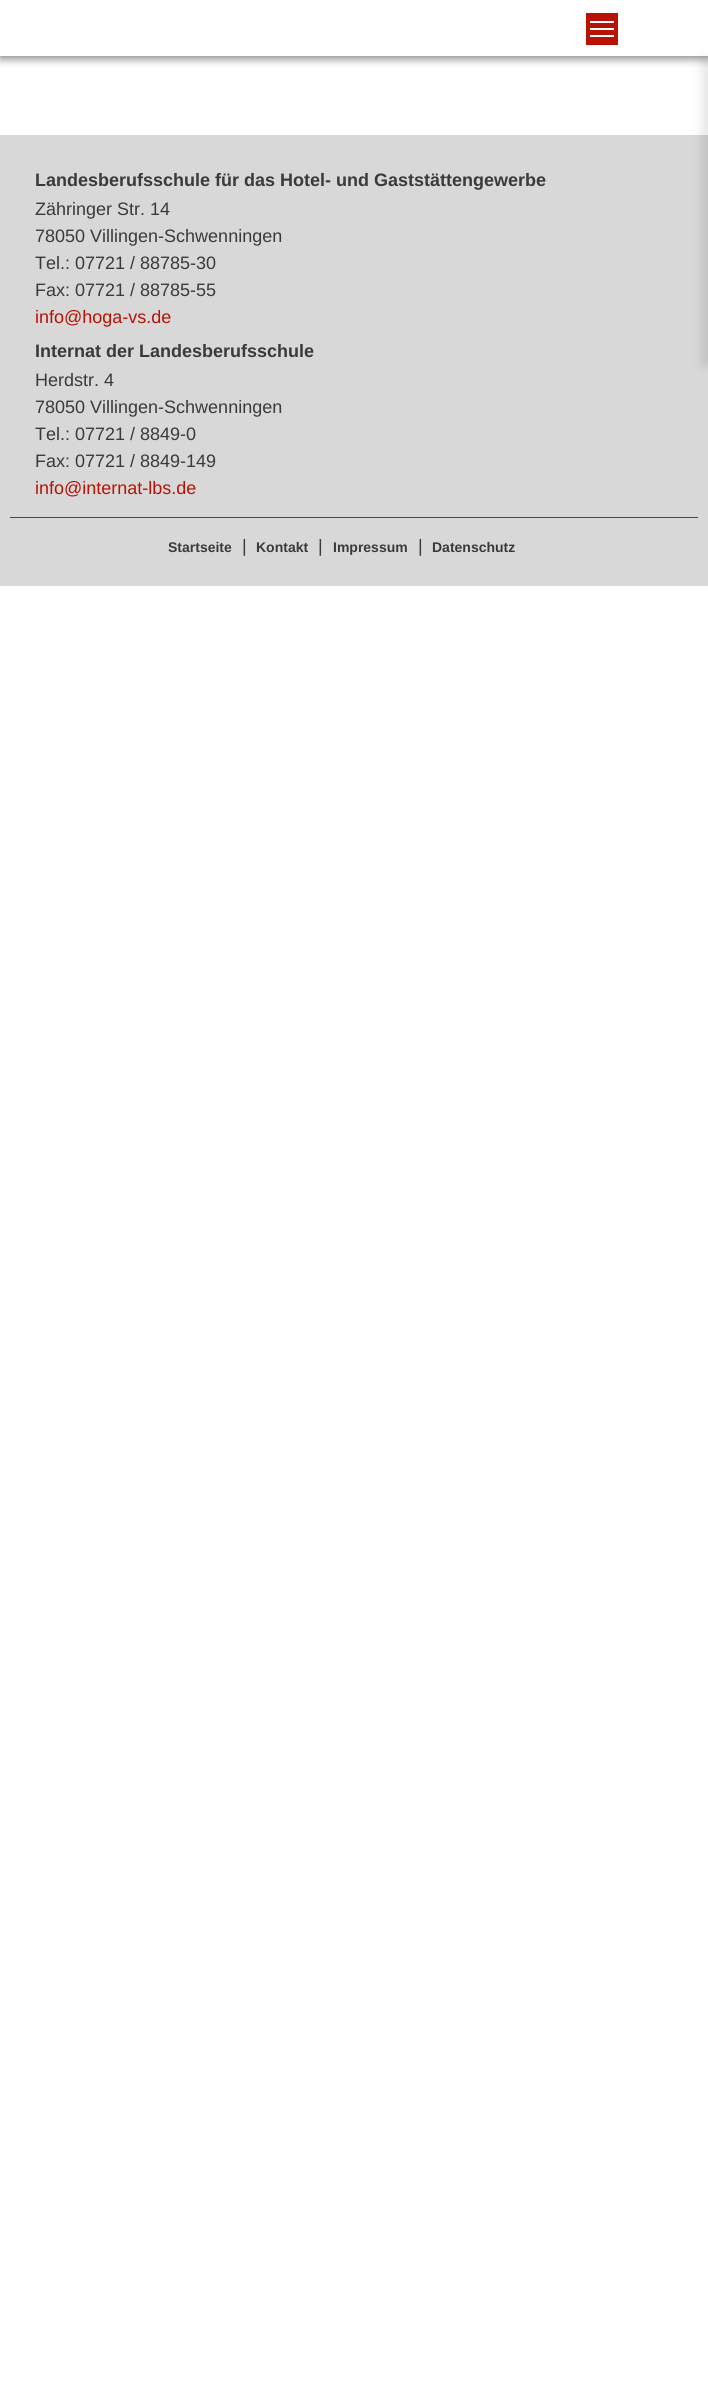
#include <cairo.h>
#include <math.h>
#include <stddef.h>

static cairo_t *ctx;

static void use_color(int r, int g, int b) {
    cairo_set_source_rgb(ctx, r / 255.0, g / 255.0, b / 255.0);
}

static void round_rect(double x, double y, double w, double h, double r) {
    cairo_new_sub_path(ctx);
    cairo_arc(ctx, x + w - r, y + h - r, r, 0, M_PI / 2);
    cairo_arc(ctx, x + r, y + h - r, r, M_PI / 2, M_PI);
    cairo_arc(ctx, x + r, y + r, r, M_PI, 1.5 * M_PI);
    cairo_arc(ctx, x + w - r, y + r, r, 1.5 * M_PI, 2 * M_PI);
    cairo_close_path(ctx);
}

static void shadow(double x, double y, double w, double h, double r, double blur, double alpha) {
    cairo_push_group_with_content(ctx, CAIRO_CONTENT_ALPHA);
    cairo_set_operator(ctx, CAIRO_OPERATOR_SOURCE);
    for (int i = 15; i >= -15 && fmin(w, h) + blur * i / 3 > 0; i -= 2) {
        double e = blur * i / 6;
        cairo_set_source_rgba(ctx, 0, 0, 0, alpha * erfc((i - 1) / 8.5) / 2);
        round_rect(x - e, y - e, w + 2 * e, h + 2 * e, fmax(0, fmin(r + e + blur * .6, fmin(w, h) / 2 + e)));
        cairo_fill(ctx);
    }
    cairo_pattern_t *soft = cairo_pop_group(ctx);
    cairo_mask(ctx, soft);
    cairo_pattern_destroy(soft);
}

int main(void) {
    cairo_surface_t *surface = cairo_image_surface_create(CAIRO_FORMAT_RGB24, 708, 2392);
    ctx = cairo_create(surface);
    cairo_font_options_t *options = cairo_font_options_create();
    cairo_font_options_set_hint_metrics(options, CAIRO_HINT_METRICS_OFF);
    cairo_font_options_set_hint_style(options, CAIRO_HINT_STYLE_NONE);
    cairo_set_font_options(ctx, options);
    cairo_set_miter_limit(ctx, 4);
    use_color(255, 255, 255);
    cairo_paint(ctx);
    cairo_save(ctx);
    cairo_rectangle(ctx, 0, 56, 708, 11);
    cairo_clip(ctx);
    use_color(0, 0, 0);
    shadow(0, 0, 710, 58, 0, 5, 0.54);
    cairo_restore(ctx);
    use_color(184, 18, 4);
    cairo_rectangle(ctx, 586, 13, 32, 32);
    cairo_fill(ctx);
    use_color(255, 255, 255);
    cairo_rectangle(ctx, 590, 21, 24, 2);
    cairo_fill(ctx);
    cairo_rectangle(ctx, 590, 28, 24, 2);
    cairo_fill(ctx);
    cairo_rectangle(ctx, 590, 35, 24, 2);
    cairo_fill(ctx);
    use_color(216, 216, 216);
    cairo_rectangle(ctx, 0, 135, 708, 451);
    cairo_fill(ctx);
    use_color(0, 0, 0);
    shadow(702, 59, 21, 306, 0, 5, 0.1);
    cairo_select_font_face(ctx, "Liberation Sans", CAIRO_FONT_SLANT_NORMAL, CAIRO_FONT_WEIGHT_BOLD);
    cairo_set_font_size(ctx, 18);
    use_color(58, 58, 58);
    cairo_move_to(ctx, 35, 186);
    cairo_show_text(ctx, "Landesberufsschule für das Hotel- und Gaststättengewerbe");
    cairo_select_font_face(ctx, "Liberation Sans", CAIRO_FONT_SLANT_NORMAL, CAIRO_FONT_WEIGHT_NORMAL);
    cairo_move_to(ctx, 35, 215);
    cairo_show_text(ctx, "Zähringer Str. 14");
    cairo_move_to(ctx, 35, 242);
    cairo_show_text(ctx, "78050 Villingen-Schwenningen");
    cairo_move_to(ctx, 35, 269);
    cairo_show_text(ctx, "Tel.: 07721 / 88785-30");
    cairo_move_to(ctx, 35, 296);
    cairo_show_text(ctx, "Fax: 07721 / 88785-55");
    use_color(184, 18, 4);
    cairo_move_to(ctx, 35, 323);
    cairo_show_text(ctx, "info@hoga-vs.de");
    cairo_select_font_face(ctx, "Liberation Sans", CAIRO_FONT_SLANT_NORMAL, CAIRO_FONT_WEIGHT_BOLD);
    use_color(58, 58, 58);
    cairo_move_to(ctx, 35, 357);
    cairo_show_text(ctx, "Internat der Landesberufsschule");
    cairo_select_font_face(ctx, "Liberation Sans", CAIRO_FONT_SLANT_NORMAL, CAIRO_FONT_WEIGHT_NORMAL);
    cairo_move_to(ctx, 35, 386);
    cairo_show_text(ctx, "Herdstr. 4");
    cairo_move_to(ctx, 35, 413);
    cairo_show_text(ctx, "78050 Villingen-Schwenningen");
    cairo_move_to(ctx, 35, 440);
    cairo_show_text(ctx, "Tel.: 07721 / 8849-0");
    cairo_move_to(ctx, 35, 467);
    cairo_show_text(ctx, "Fax: 07721 / 8849-149");
    use_color(184, 18, 4);
    cairo_move_to(ctx, 35, 494);
    cairo_show_text(ctx, "info@internat-lbs.de");
    use_color(71, 71, 71);
    cairo_rectangle(ctx, 10, 517, 688, 1);
    cairo_fill(ctx);
    cairo_select_font_face(ctx, "Liberation Sans", CAIRO_FONT_SLANT_NORMAL, CAIRO_FONT_WEIGHT_BOLD);
    cairo_set_font_size(ctx, 14);
    use_color(58, 58, 58);
    cairo_move_to(ctx, 168, 552);
    cairo_show_text(ctx, "Startseite");
    cairo_select_font_face(ctx, "Liberation Sans", CAIRO_FONT_SLANT_NORMAL, CAIRO_FONT_WEIGHT_NORMAL);
    cairo_set_font_size(ctx, 18);
    cairo_move_to(ctx, 242, 552);
    cairo_show_text(ctx, "|");
    cairo_select_font_face(ctx, "Liberation Sans", CAIRO_FONT_SLANT_NORMAL, CAIRO_FONT_WEIGHT_BOLD);
    cairo_set_font_size(ctx, 14);
    cairo_move_to(ctx, 256, 552);
    cairo_show_text(ctx, "Kontakt");
    cairo_select_font_face(ctx, "Liberation Sans", CAIRO_FONT_SLANT_NORMAL, CAIRO_FONT_WEIGHT_NORMAL);
    cairo_set_font_size(ctx, 18);
    cairo_move_to(ctx, 318, 552);
    cairo_show_text(ctx, "|");
    cairo_select_font_face(ctx, "Liberation Sans", CAIRO_FONT_SLANT_NORMAL, CAIRO_FONT_WEIGHT_BOLD);
    cairo_set_font_size(ctx, 14);
    cairo_move_to(ctx, 333, 552);
    cairo_show_text(ctx, "Impressum");
    cairo_select_font_face(ctx, "Liberation Sans", CAIRO_FONT_SLANT_NORMAL, CAIRO_FONT_WEIGHT_NORMAL);
    cairo_set_font_size(ctx, 18);
    cairo_move_to(ctx, 418, 552);
    cairo_show_text(ctx, "|");
    cairo_select_font_face(ctx, "Liberation Sans", CAIRO_FONT_SLANT_NORMAL, CAIRO_FONT_WEIGHT_BOLD);
    cairo_set_font_size(ctx, 14);
    cairo_move_to(ctx, 432, 552);
    cairo_show_text(ctx, "Datenschutz");
    cairo_surface_write_to_png(surface, "result.png");
    cairo_font_options_destroy(options);
    cairo_destroy(ctx);
    cairo_surface_destroy(surface);
    return 0;
}
